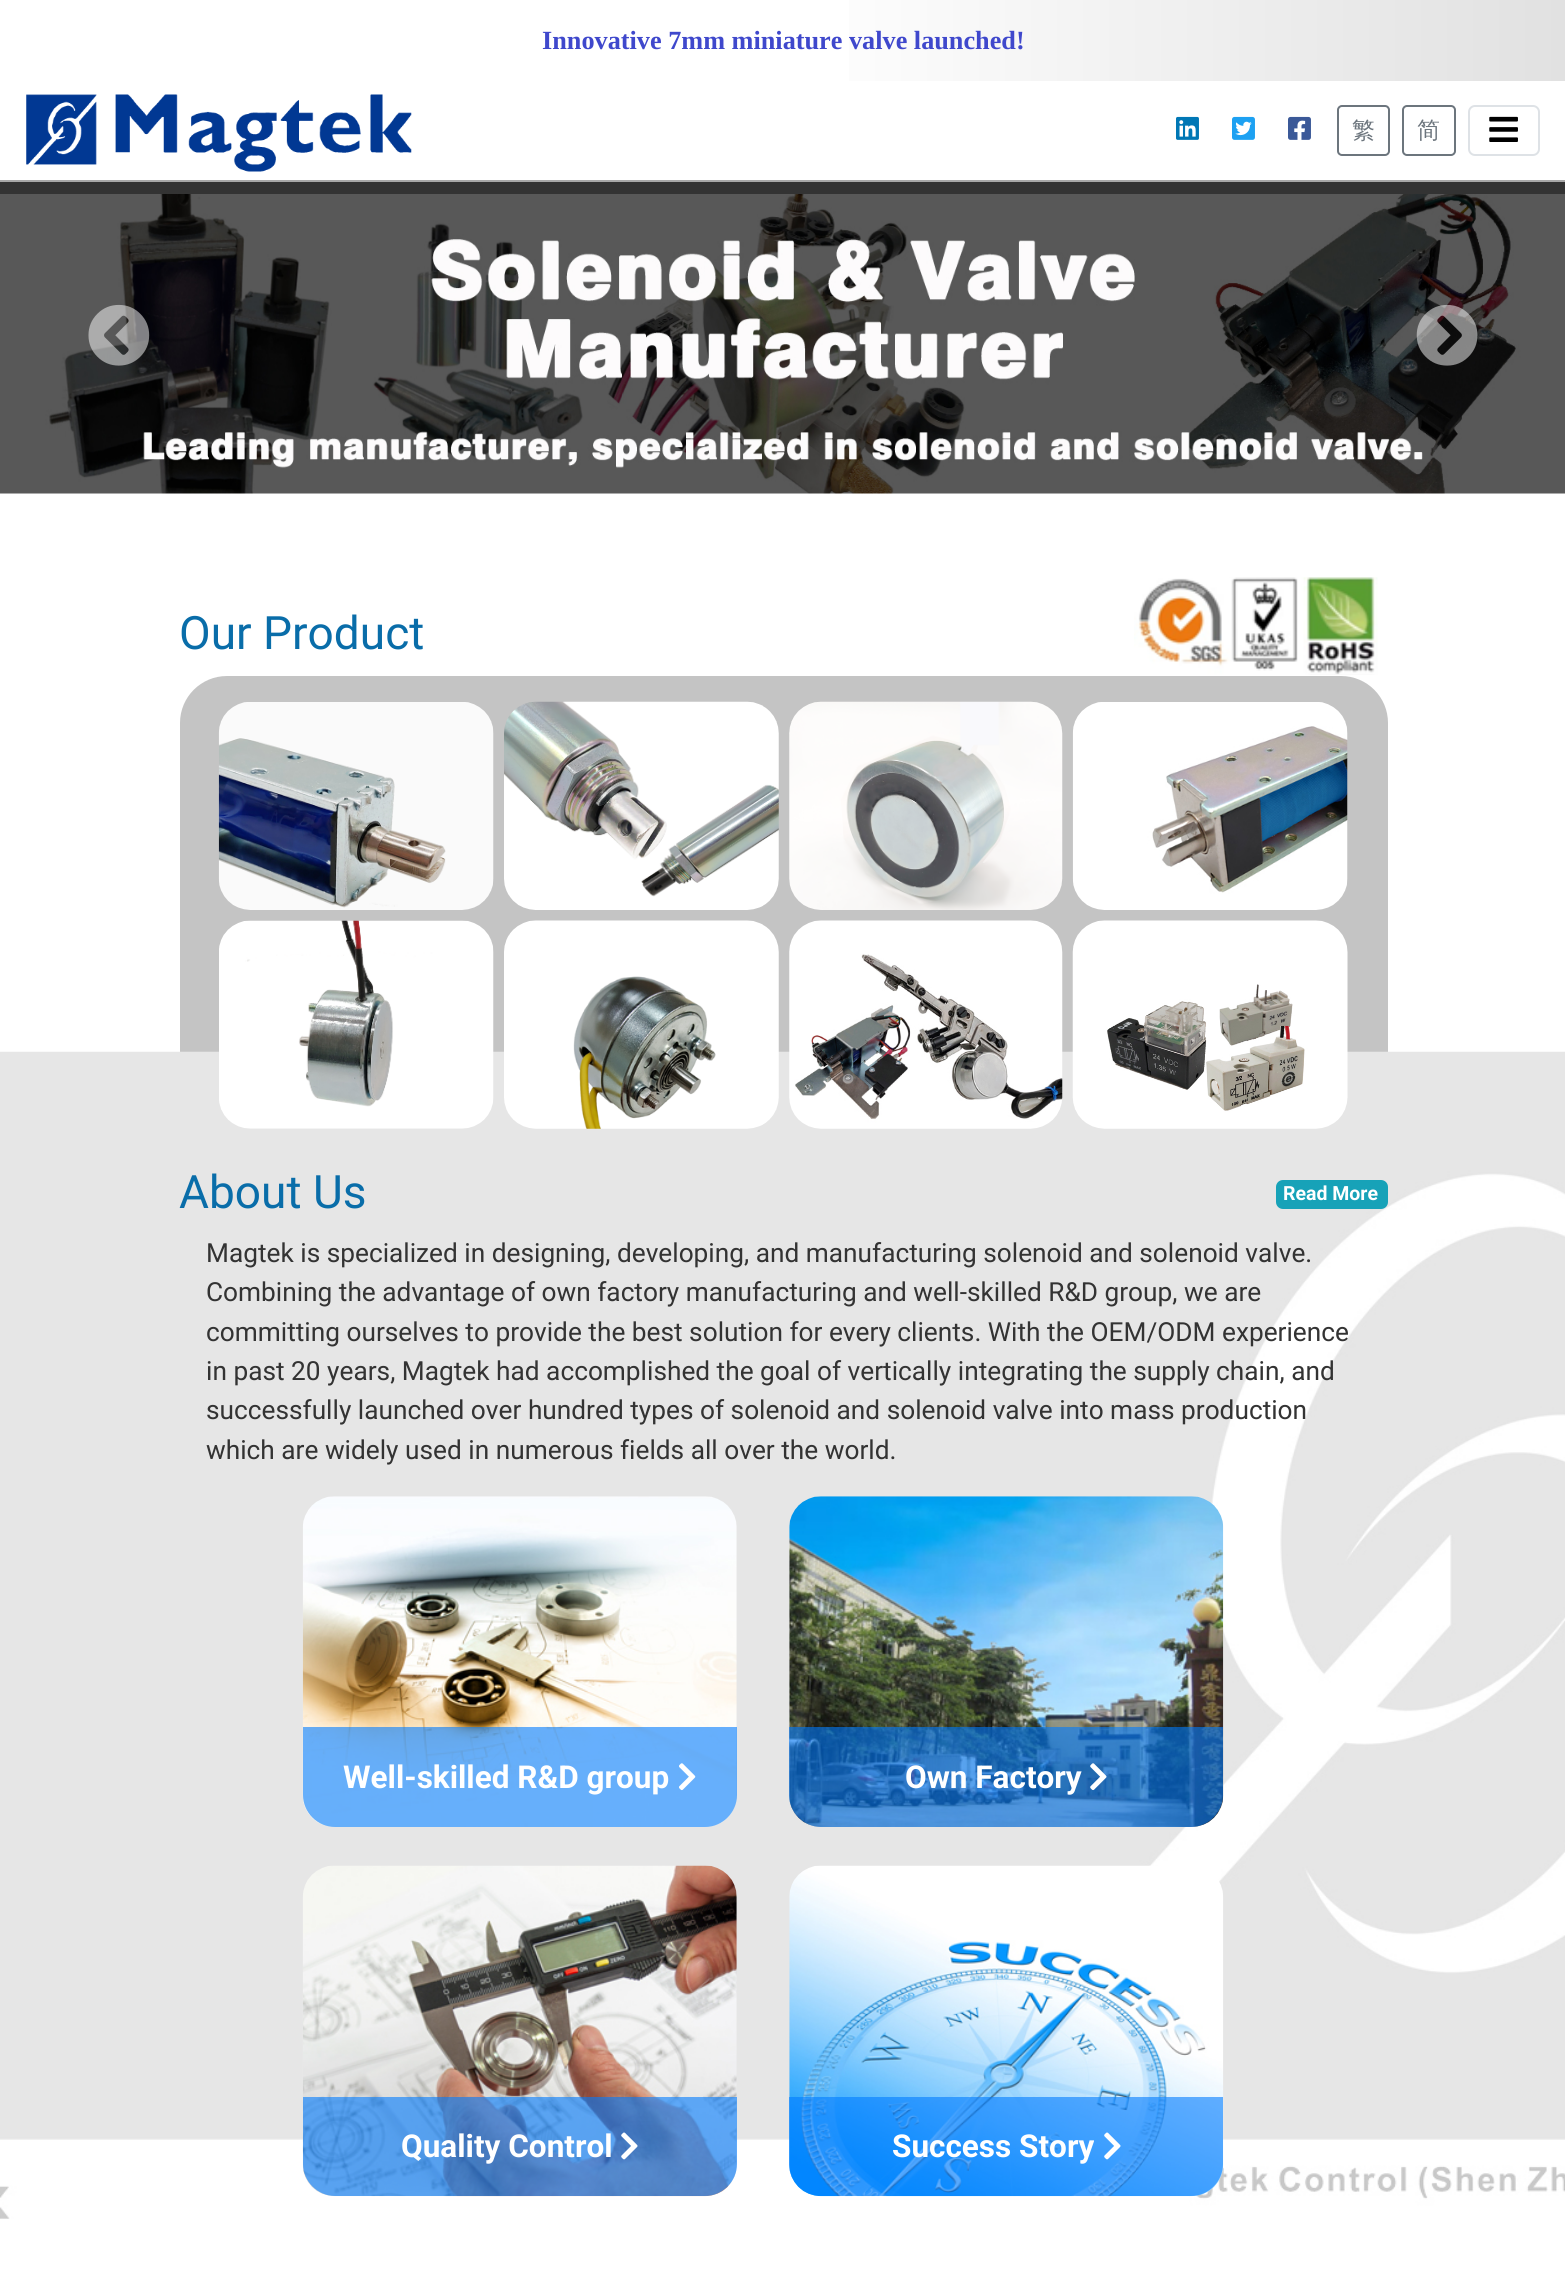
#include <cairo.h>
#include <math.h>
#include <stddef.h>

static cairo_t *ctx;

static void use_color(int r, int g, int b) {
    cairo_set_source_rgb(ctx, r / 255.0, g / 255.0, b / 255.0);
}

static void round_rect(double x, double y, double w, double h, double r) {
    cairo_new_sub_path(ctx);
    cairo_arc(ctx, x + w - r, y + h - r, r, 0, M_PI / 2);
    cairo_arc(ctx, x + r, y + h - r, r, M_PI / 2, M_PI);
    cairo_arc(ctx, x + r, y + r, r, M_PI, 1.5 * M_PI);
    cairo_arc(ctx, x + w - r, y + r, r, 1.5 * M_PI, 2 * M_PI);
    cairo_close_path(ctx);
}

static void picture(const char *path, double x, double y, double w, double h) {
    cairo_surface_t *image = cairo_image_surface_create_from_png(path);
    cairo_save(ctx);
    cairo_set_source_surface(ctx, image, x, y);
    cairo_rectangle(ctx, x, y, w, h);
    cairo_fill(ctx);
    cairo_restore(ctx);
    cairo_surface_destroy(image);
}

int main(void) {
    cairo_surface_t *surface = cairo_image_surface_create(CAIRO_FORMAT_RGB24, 1565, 2282);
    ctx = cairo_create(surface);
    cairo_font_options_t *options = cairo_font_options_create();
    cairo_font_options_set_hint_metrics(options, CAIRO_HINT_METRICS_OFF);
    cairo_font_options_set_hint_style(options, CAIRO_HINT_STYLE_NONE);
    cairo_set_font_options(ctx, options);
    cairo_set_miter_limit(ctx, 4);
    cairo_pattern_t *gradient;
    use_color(255, 255, 255);
    cairo_paint(ctx);
    use_color(168, 168, 168);
    cairo_rectangle(ctx, 0, 180, 1565, 2);
    cairo_fill(ctx);
    gradient = cairo_pattern_create_linear(784, 40, 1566, 40);
    cairo_pattern_add_color_stop_rgba(gradient, 0, 1, 1, 1, 1);
    cairo_pattern_add_color_stop_rgba(gradient, 1, 0.882, 0.882, 0.882, 1);
    cairo_set_source(ctx, gradient);
    cairo_pattern_destroy(gradient);
    cairo_rectangle(ctx, 849, 0, 716, 81);
    cairo_fill(ctx);
    cairo_select_font_face(ctx, "Liberation Serif", CAIRO_FONT_SLANT_NORMAL, CAIRO_FONT_WEIGHT_BOLD);
    cairo_set_font_size(ctx, 26.25);
    use_color(63, 72, 204);
    cairo_move_to(ctx, 542, 49);
    cairo_show_text(ctx, "Innovative 7mm miniature valve launched!");
    picture("img1.png", 26, 94, 386, 78);
    picture("img2.png", 1176, 116, 23, 24);
    picture("img3.png", 1232, 116, 23, 24);
    picture("img4.png", 1288, 116, 23, 24);
    round_rect(1338, 106, 51, 49, 4);
    use_color(108, 117, 125);
    cairo_stroke(ctx);
    cairo_select_font_face(ctx, "WenQuanYi Zen Hei Medium", CAIRO_FONT_SLANT_NORMAL, CAIRO_FONT_WEIGHT_NORMAL);
    cairo_set_font_size(ctx, 23);
    cairo_move_to(ctx, 1352, 138);
    cairo_show_text(ctx, "繁");
    round_rect(1403, 106, 52, 49, 4);
    cairo_stroke(ctx);
    cairo_move_to(ctx, 1417, 138);
    cairo_show_text(ctx, "简");
    round_rect(1469, 106, 70, 49, 6);
    use_color(222, 226, 230);
    cairo_stroke(ctx);
    picture("img5.png", 1489, 116, 29, 26);
    picture("img6.png", 0, 194, 1565, 300);
    use_color(51, 51, 51);
    cairo_rectangle(ctx, 0, 182, 1565, 12);
    cairo_fill(ctx);
    picture("img7.png", 88, 304, 62, 62);
    picture("img8.png", 1416, 304, 62, 62);
    cairo_select_font_face(ctx, "Roboto", CAIRO_FONT_SLANT_NORMAL, CAIRO_FONT_WEIGHT_NORMAL);
    cairo_set_font_size(ctx, 46);
    use_color(9, 109, 169);
    cairo_move_to(ctx, 179, 649);
    cairo_show_text(ctx, "Our Product");
    picture("img9.png", 1134, 577, 244, 98);
    use_color(196, 196, 196);
    cairo_new_path(ctx);
    cairo_move_to(ctx, 227, 676);
    cairo_line_to(ctx, 1341, 676);
    cairo_curve_to(ctx, 1367, 676, 1388, 697, 1388, 723);
    cairo_line_to(ctx, 1388, 1139);
    cairo_line_to(ctx, 180, 1139);
    cairo_line_to(ctx, 180, 723);
    cairo_curve_to(ctx, 180, 697, 201, 676, 227, 676);
    cairo_close_path(ctx);
    cairo_fill(ctx);
    picture("img10.png", 218, 702, 276, 208);
    picture("img11.png", 504, 701, 275, 209);
    picture("img12.png", 789, 701, 274, 209);
    picture("img13.png", 1072, 702, 276, 208);
    picture("img18.png", 0, 1051, 1565, 1168);
    picture("img14.png", 219, 920, 275, 209);
    picture("img15.png", 504, 920, 275, 209);
    picture("img16.png", 789, 920, 274, 209);
    picture("img17.png", 1072, 920, 276, 209);
    use_color(9, 109, 169);
    cairo_move_to(ctx, 179, 1208);
    cairo_show_text(ctx, "About Us");
    use_color(23, 162, 184);
    round_rect(1276, 1180, 112, 29, 7);
    cairo_fill(ctx);
    cairo_select_font_face(ctx, "Roboto", CAIRO_FONT_SLANT_NORMAL, CAIRO_FONT_WEIGHT_BOLD);
    cairo_set_font_size(ctx, 19.5);
    use_color(255, 255, 255);
    cairo_move_to(ctx, 1283, 1200);
    cairo_show_text(ctx, "Read More");
    cairo_select_font_face(ctx, "Roboto", CAIRO_FONT_SLANT_NORMAL, CAIRO_FONT_WEIGHT_NORMAL);
    cairo_set_font_size(ctx, 26.25);
    use_color(51, 51, 51);
    cairo_move_to(ctx, 206, 1262);
    cairo_show_text(ctx, "Magtek is specialized in designing, developing, and manufacturing solenoid and solenoid valve.");
    cairo_move_to(ctx, 206, 1301);
    cairo_show_text(ctx, "Combining the advantage of own factory manufacturing and well-skilled R&D group, we are");
    cairo_move_to(ctx, 206, 1341);
    cairo_show_text(ctx, "committing ourselves to provide the best solution for every clients. With the OEM/ODM experience");
    cairo_move_to(ctx, 206, 1380);
    cairo_show_text(ctx, "in past 20 years, Magtek had accomplished the goal of vertically integrating the supply chain, and");
    cairo_move_to(ctx, 206, 1419);
    cairo_show_text(ctx, "successfully launched over hundred types of solenoid and solenoid valve into mass production");
    cairo_move_to(ctx, 206, 1459);
    cairo_show_text(ctx, "which are widely used in numerous fields all over the world.");
    picture("img19.png", 302, 1496, 435, 331);
    cairo_set_source_rgba(ctx, 0, 0.482, 1, 0.6);
    cairo_new_path(ctx);
    cairo_move_to(ctx, 303, 1727);
    cairo_line_to(ctx, 737, 1727);
    cairo_line_to(ctx, 737, 1795);
    cairo_curve_to(ctx, 737, 1812.5, 722.5, 1827, 705, 1827);
    cairo_line_to(ctx, 335, 1827);
    cairo_curve_to(ctx, 317.5, 1827, 303, 1812.5, 303, 1795);
    cairo_close_path(ctx);
    cairo_fill(ctx);
    cairo_select_font_face(ctx, "Roboto", CAIRO_FONT_SLANT_NORMAL, CAIRO_FONT_WEIGHT_BOLD);
    cairo_set_font_size(ctx, 31.5);
    use_color(255, 255, 255);
    cairo_move_to(ctx, 343, 1788);
    cairo_show_text(ctx, "Well-skilled R&D group");
    picture("img20.png", 679, 1763, 17, 28);
    picture("img21.png", 789, 1496, 435, 331);
    cairo_set_source_rgba(ctx, 0, 0.482, 1, 0.6);
    cairo_new_path(ctx);
    cairo_move_to(ctx, 789, 1727);
    cairo_line_to(ctx, 1223, 1727);
    cairo_line_to(ctx, 1223, 1795);
    cairo_curve_to(ctx, 1223, 1812.5, 1208.5, 1827, 1191, 1827);
    cairo_line_to(ctx, 821, 1827);
    cairo_curve_to(ctx, 803.5, 1827, 789, 1812.5, 789, 1795);
    cairo_close_path(ctx);
    cairo_fill(ctx);
    use_color(255, 255, 255);
    cairo_move_to(ctx, 905, 1788);
    cairo_show_text(ctx, "Own Factory");
    picture("img22.png", 1090, 1763, 17, 28);
    picture("img23.png", 302, 1865, 435, 332);
    cairo_set_source_rgba(ctx, 0, 0.482, 1, 0.6);
    cairo_new_path(ctx);
    cairo_move_to(ctx, 303, 2097);
    cairo_line_to(ctx, 737, 2097);
    cairo_line_to(ctx, 737, 2164);
    cairo_curve_to(ctx, 737, 2181.5, 722.5, 2196, 705, 2196);
    cairo_line_to(ctx, 335, 2196);
    cairo_curve_to(ctx, 317.5, 2196, 303, 2181.5, 303, 2164);
    cairo_close_path(ctx);
    cairo_fill(ctx);
    use_color(255, 255, 255);
    cairo_move_to(ctx, 401, 2157);
    cairo_show_text(ctx, "Quality Control");
    picture("img24.png", 621, 2132, 17, 28);
    picture("img25.png", 789, 1865, 435, 332);
    cairo_set_source_rgba(ctx, 0, 0.482, 1, 0.6);
    cairo_new_path(ctx);
    cairo_move_to(ctx, 789, 2097);
    cairo_line_to(ctx, 1223, 2097);
    cairo_line_to(ctx, 1223, 2164);
    cairo_curve_to(ctx, 1223, 2181.5, 1208.5, 2196, 1191, 2196);
    cairo_line_to(ctx, 821, 2196);
    cairo_curve_to(ctx, 803.5, 2196, 789, 2181.5, 789, 2164);
    cairo_close_path(ctx);
    cairo_fill(ctx);
    use_color(255, 255, 255);
    cairo_move_to(ctx, 892, 2157);
    cairo_show_text(ctx, "Success Story");
    picture("img26.png", 1104, 2132, 17, 28);
    cairo_surface_write_to_png(surface, "result.png");
    cairo_font_options_destroy(options);
    cairo_destroy(ctx);
    cairo_surface_destroy(surface);
    return 0;
}
